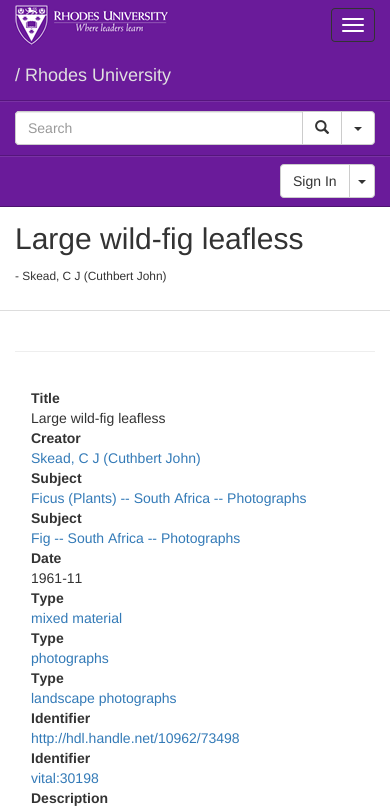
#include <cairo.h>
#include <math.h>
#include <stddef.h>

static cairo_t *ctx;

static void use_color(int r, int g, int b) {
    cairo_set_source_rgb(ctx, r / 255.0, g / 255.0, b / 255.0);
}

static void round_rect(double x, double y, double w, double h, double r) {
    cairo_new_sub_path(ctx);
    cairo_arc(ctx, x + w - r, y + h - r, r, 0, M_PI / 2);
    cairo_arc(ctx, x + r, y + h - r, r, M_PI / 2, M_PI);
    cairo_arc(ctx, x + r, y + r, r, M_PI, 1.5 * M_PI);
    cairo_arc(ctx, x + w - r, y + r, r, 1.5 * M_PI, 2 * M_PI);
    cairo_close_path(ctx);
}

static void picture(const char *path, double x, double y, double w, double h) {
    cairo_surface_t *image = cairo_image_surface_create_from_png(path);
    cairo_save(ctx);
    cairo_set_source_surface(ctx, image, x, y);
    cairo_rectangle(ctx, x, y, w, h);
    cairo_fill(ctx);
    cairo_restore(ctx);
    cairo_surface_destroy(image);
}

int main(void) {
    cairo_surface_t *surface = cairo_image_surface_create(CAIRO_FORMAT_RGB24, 390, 810);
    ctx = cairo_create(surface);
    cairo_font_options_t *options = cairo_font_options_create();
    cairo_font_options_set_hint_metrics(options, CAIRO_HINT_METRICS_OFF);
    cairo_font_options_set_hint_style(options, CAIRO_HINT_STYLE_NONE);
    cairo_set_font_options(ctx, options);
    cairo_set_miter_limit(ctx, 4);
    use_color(255, 255, 255);
    cairo_paint(ctx);
    use_color(106, 27, 154);
    cairo_rectangle(ctx, 0, 0, 390, 206);
    cairo_fill(ctx);
    use_color(76, 19, 111);
    cairo_rectangle(ctx, 0, 206, 390, 1);
    cairo_fill(ctx);
    picture("img1.png", 15, 5, 154, 40);
    round_rect(331.5, 8.5, 43, 33, 3.5);
    use_color(51, 51, 51);
    cairo_set_line_width(ctx, 1);
    cairo_stroke(ctx);
    use_color(255, 255, 255);
    round_rect(342, 18, 22, 2, 1);
    cairo_fill(ctx);
    round_rect(342, 24, 22, 2, 1);
    cairo_fill(ctx);
    round_rect(342, 30, 22, 2, 1);
    cairo_fill(ctx);
    cairo_select_font_face(ctx, "Liberation Sans", CAIRO_FONT_SLANT_NORMAL, CAIRO_FONT_WEIGHT_NORMAL);
    cairo_set_font_size(ctx, 18);
    use_color(224, 224, 224);
    cairo_move_to(ctx, 15, 81);
    cairo_show_text(ctx, "/ Rhodes University");
    use_color(121, 50, 164);
    cairo_rectangle(ctx, 0, 156, 390, 1);
    cairo_fill(ctx);
    cairo_rectangle(ctx, 0, 101, 390, 1);
    cairo_fill(ctx);
    use_color(85, 22, 124);
    cairo_rectangle(ctx, 0, 100, 390, 1);
    cairo_fill(ctx);
    cairo_rectangle(ctx, 0, 155, 390, 1);
    cairo_fill(ctx);
    use_color(255, 255, 255);
    cairo_new_path(ctx);
    cairo_move_to(ctx, 19, 111);
    cairo_line_to(ctx, 303, 111);
    cairo_line_to(ctx, 303, 145);
    cairo_line_to(ctx, 19, 145);
    cairo_curve_to(ctx, 17, 145, 15, 143, 15, 141);
    cairo_line_to(ctx, 15, 115);
    cairo_curve_to(ctx, 15, 113, 17, 111, 19, 111);
    cairo_close_path(ctx);
    cairo_fill(ctx);
    use_color(236, 236, 236);
    cairo_new_path(ctx);
    cairo_move_to(ctx, 19, 113);
    cairo_line_to(ctx, 302, 113);
    cairo_line_to(ctx, 302, 112);
    cairo_line_to(ctx, 19, 112);
    cairo_curve_to(ctx, 17, 112, 16, 114, 16, 116);
    cairo_curve_to(ctx, 16, 114, 17, 113, 19, 113);
    cairo_close_path(ctx);
    cairo_fill(ctx);
    cairo_new_path(ctx);
    cairo_move_to(ctx, 19, 111.5);
    cairo_line_to(ctx, 302.5, 111.5);
    cairo_line_to(ctx, 302.5, 144.5);
    cairo_line_to(ctx, 19, 144.5);
    cairo_curve_to(ctx, 17, 144.5, 15.5, 143, 15.5, 141);
    cairo_line_to(ctx, 15.5, 115);
    cairo_curve_to(ctx, 15.5, 113, 17, 111.5, 19, 111.5);
    cairo_close_path(ctx);
    use_color(204, 204, 204);
    cairo_stroke(ctx);
    cairo_set_font_size(ctx, 14);
    use_color(153, 153, 153);
    cairo_move_to(ctx, 28, 133);
    cairo_show_text(ctx, "Search");
    use_color(255, 255, 255);
    cairo_rectangle(ctx, 302.5, 111.5, 39, 33);
    cairo_fill_preserve(ctx);
    use_color(204, 204, 204);
    cairo_stroke(ctx);
    picture("img2.png", 315, 120, 15, 14);
    use_color(255, 255, 255);
    cairo_new_path(ctx);
    cairo_move_to(ctx, 341.5, 111.5);
    cairo_line_to(ctx, 371, 111.5);
    cairo_curve_to(ctx, 373, 111.5, 374.5, 113, 374.5, 115);
    cairo_line_to(ctx, 374.5, 141);
    cairo_curve_to(ctx, 374.5, 143, 373, 144.5, 371, 144.5);
    cairo_line_to(ctx, 341.5, 144.5);
    cairo_close_path(ctx);
    cairo_fill_preserve(ctx);
    use_color(204, 204, 204);
    cairo_stroke(ctx);
    use_color(51, 51, 51);
    cairo_new_path(ctx);
    cairo_move_to(ctx, 354, 127);
    cairo_line_to(ctx, 362, 127);
    cairo_line_to(ctx, 358, 131);
    cairo_close_path(ctx);
    cairo_fill(ctx);
    use_color(255, 255, 255);
    cairo_new_path(ctx);
    cairo_move_to(ctx, 284, 164.5);
    cairo_line_to(ctx, 349.5, 164.5);
    cairo_line_to(ctx, 349.5, 197.5);
    cairo_line_to(ctx, 284, 197.5);
    cairo_curve_to(ctx, 282, 197.5, 280.5, 196, 280.5, 194);
    cairo_line_to(ctx, 280.5, 168);
    cairo_curve_to(ctx, 280.5, 166, 282, 164.5, 284, 164.5);
    cairo_close_path(ctx);
    cairo_fill_preserve(ctx);
    use_color(204, 204, 204);
    cairo_stroke(ctx);
    use_color(51, 51, 51);
    cairo_move_to(ctx, 293, 186);
    cairo_show_text(ctx, "Sign In");
    use_color(255, 255, 255);
    cairo_new_path(ctx);
    cairo_move_to(ctx, 349.5, 164.5);
    cairo_line_to(ctx, 371, 164.5);
    cairo_curve_to(ctx, 373, 164.5, 374.5, 166, 374.5, 168);
    cairo_line_to(ctx, 374.5, 194);
    cairo_curve_to(ctx, 374.5, 196, 373, 197.5, 371, 197.5);
    cairo_line_to(ctx, 349.5, 197.5);
    cairo_close_path(ctx);
    cairo_fill_preserve(ctx);
    use_color(204, 204, 204);
    cairo_stroke(ctx);
    use_color(51, 51, 51);
    cairo_new_path(ctx);
    cairo_move_to(ctx, 358, 180);
    cairo_line_to(ctx, 366, 180);
    cairo_line_to(ctx, 362, 184);
    cairo_close_path(ctx);
    cairo_fill(ctx);
    use_color(221, 221, 221);
    cairo_rectangle(ctx, 0, 310, 390, 1);
    cairo_fill(ctx);
    cairo_set_font_size(ctx, 30);
    use_color(51, 51, 51);
    cairo_move_to(ctx, 15, 249);
    cairo_show_text(ctx, "Large wild-fig leafless");
    cairo_set_font_size(ctx, 11.9);
    cairo_move_to(ctx, 15, 280);
    cairo_show_text(ctx, "- Skead, C J (Cuthbert John)");
    use_color(238, 238, 238);
    cairo_rectangle(ctx, 15, 351, 360, 1);
    cairo_fill(ctx);
    cairo_select_font_face(ctx, "Liberation Sans", CAIRO_FONT_SLANT_NORMAL, CAIRO_FONT_WEIGHT_BOLD);
    cairo_set_font_size(ctx, 14);
    use_color(51, 51, 51);
    cairo_move_to(ctx, 31, 403);
    cairo_show_text(ctx, "Title");
    cairo_select_font_face(ctx, "Liberation Sans", CAIRO_FONT_SLANT_NORMAL, CAIRO_FONT_WEIGHT_NORMAL);
    cairo_move_to(ctx, 31, 423);
    cairo_show_text(ctx, "Large wild-fig leafless");
    cairo_select_font_face(ctx, "Liberation Sans", CAIRO_FONT_SLANT_NORMAL, CAIRO_FONT_WEIGHT_BOLD);
    cairo_move_to(ctx, 31, 443);
    cairo_show_text(ctx, "Creator");
    cairo_select_font_face(ctx, "Liberation Sans", CAIRO_FONT_SLANT_NORMAL, CAIRO_FONT_WEIGHT_NORMAL);
    use_color(51, 122, 183);
    cairo_move_to(ctx, 31, 463);
    cairo_show_text(ctx, "Skead, C J (Cuthbert John)");
    cairo_select_font_face(ctx, "Liberation Sans", CAIRO_FONT_SLANT_NORMAL, CAIRO_FONT_WEIGHT_BOLD);
    use_color(51, 51, 51);
    cairo_move_to(ctx, 31, 483);
    cairo_show_text(ctx, "Subject");
    cairo_select_font_face(ctx, "Liberation Sans", CAIRO_FONT_SLANT_NORMAL, CAIRO_FONT_WEIGHT_NORMAL);
    use_color(51, 122, 183);
    cairo_move_to(ctx, 31, 503);
    cairo_show_text(ctx, "Ficus (Plants) -- South Africa -- Photographs");
    cairo_select_font_face(ctx, "Liberation Sans", CAIRO_FONT_SLANT_NORMAL, CAIRO_FONT_WEIGHT_BOLD);
    use_color(51, 51, 51);
    cairo_move_to(ctx, 31, 523);
    cairo_show_text(ctx, "Subject");
    cairo_select_font_face(ctx, "Liberation Sans", CAIRO_FONT_SLANT_NORMAL, CAIRO_FONT_WEIGHT_NORMAL);
    use_color(51, 122, 183);
    cairo_move_to(ctx, 31, 543);
    cairo_show_text(ctx, "Fig -- South Africa -- Photographs");
    cairo_select_font_face(ctx, "Liberation Sans", CAIRO_FONT_SLANT_NORMAL, CAIRO_FONT_WEIGHT_BOLD);
    use_color(51, 51, 51);
    cairo_move_to(ctx, 31, 563);
    cairo_show_text(ctx, "Date");
    cairo_select_font_face(ctx, "Liberation Sans", CAIRO_FONT_SLANT_NORMAL, CAIRO_FONT_WEIGHT_NORMAL);
    cairo_move_to(ctx, 31, 583);
    cairo_show_text(ctx, "1961-11");
    cairo_select_font_face(ctx, "Liberation Sans", CAIRO_FONT_SLANT_NORMAL, CAIRO_FONT_WEIGHT_BOLD);
    cairo_move_to(ctx, 31, 603);
    cairo_show_text(ctx, "Type");
    cairo_select_font_face(ctx, "Liberation Sans", CAIRO_FONT_SLANT_NORMAL, CAIRO_FONT_WEIGHT_NORMAL);
    use_color(51, 122, 183);
    cairo_move_to(ctx, 31, 623);
    cairo_show_text(ctx, "mixed material");
    cairo_select_font_face(ctx, "Liberation Sans", CAIRO_FONT_SLANT_NORMAL, CAIRO_FONT_WEIGHT_BOLD);
    use_color(51, 51, 51);
    cairo_move_to(ctx, 31, 643);
    cairo_show_text(ctx, "Type");
    cairo_select_font_face(ctx, "Liberation Sans", CAIRO_FONT_SLANT_NORMAL, CAIRO_FONT_WEIGHT_NORMAL);
    use_color(51, 122, 183);
    cairo_move_to(ctx, 31, 663);
    cairo_show_text(ctx, "photographs");
    cairo_select_font_face(ctx, "Liberation Sans", CAIRO_FONT_SLANT_NORMAL, CAIRO_FONT_WEIGHT_BOLD);
    use_color(51, 51, 51);
    cairo_move_to(ctx, 31, 683);
    cairo_show_text(ctx, "Type");
    cairo_select_font_face(ctx, "Liberation Sans", CAIRO_FONT_SLANT_NORMAL, CAIRO_FONT_WEIGHT_NORMAL);
    use_color(51, 122, 183);
    cairo_move_to(ctx, 31, 703);
    cairo_show_text(ctx, "landscape photographs");
    cairo_select_font_face(ctx, "Liberation Sans", CAIRO_FONT_SLANT_NORMAL, CAIRO_FONT_WEIGHT_BOLD);
    use_color(51, 51, 51);
    cairo_move_to(ctx, 31, 723);
    cairo_show_text(ctx, "Identifier");
    cairo_select_font_face(ctx, "Liberation Sans", CAIRO_FONT_SLANT_NORMAL, CAIRO_FONT_WEIGHT_NORMAL);
    use_color(51, 122, 183);
    cairo_move_to(ctx, 31, 743);
    cairo_show_text(ctx, "http://hdl.handle.net/10962/73498");
    cairo_select_font_face(ctx, "Liberation Sans", CAIRO_FONT_SLANT_NORMAL, CAIRO_FONT_WEIGHT_BOLD);
    use_color(51, 51, 51);
    cairo_move_to(ctx, 31, 763);
    cairo_show_text(ctx, "Identifier");
    cairo_select_font_face(ctx, "Liberation Sans", CAIRO_FONT_SLANT_NORMAL, CAIRO_FONT_WEIGHT_NORMAL);
    use_color(51, 122, 183);
    cairo_move_to(ctx, 31, 783);
    cairo_show_text(ctx, "vital:30198");
    cairo_select_font_face(ctx, "Liberation Sans", CAIRO_FONT_SLANT_NORMAL, CAIRO_FONT_WEIGHT_BOLD);
    use_color(51, 51, 51);
    cairo_move_to(ctx, 31, 803);
    cairo_show_text(ctx, "Description");
    cairo_surface_write_to_png(surface, "result.png");
    cairo_font_options_destroy(options);
    cairo_destroy(ctx);
    cairo_surface_destroy(surface);
    return 0;
}
